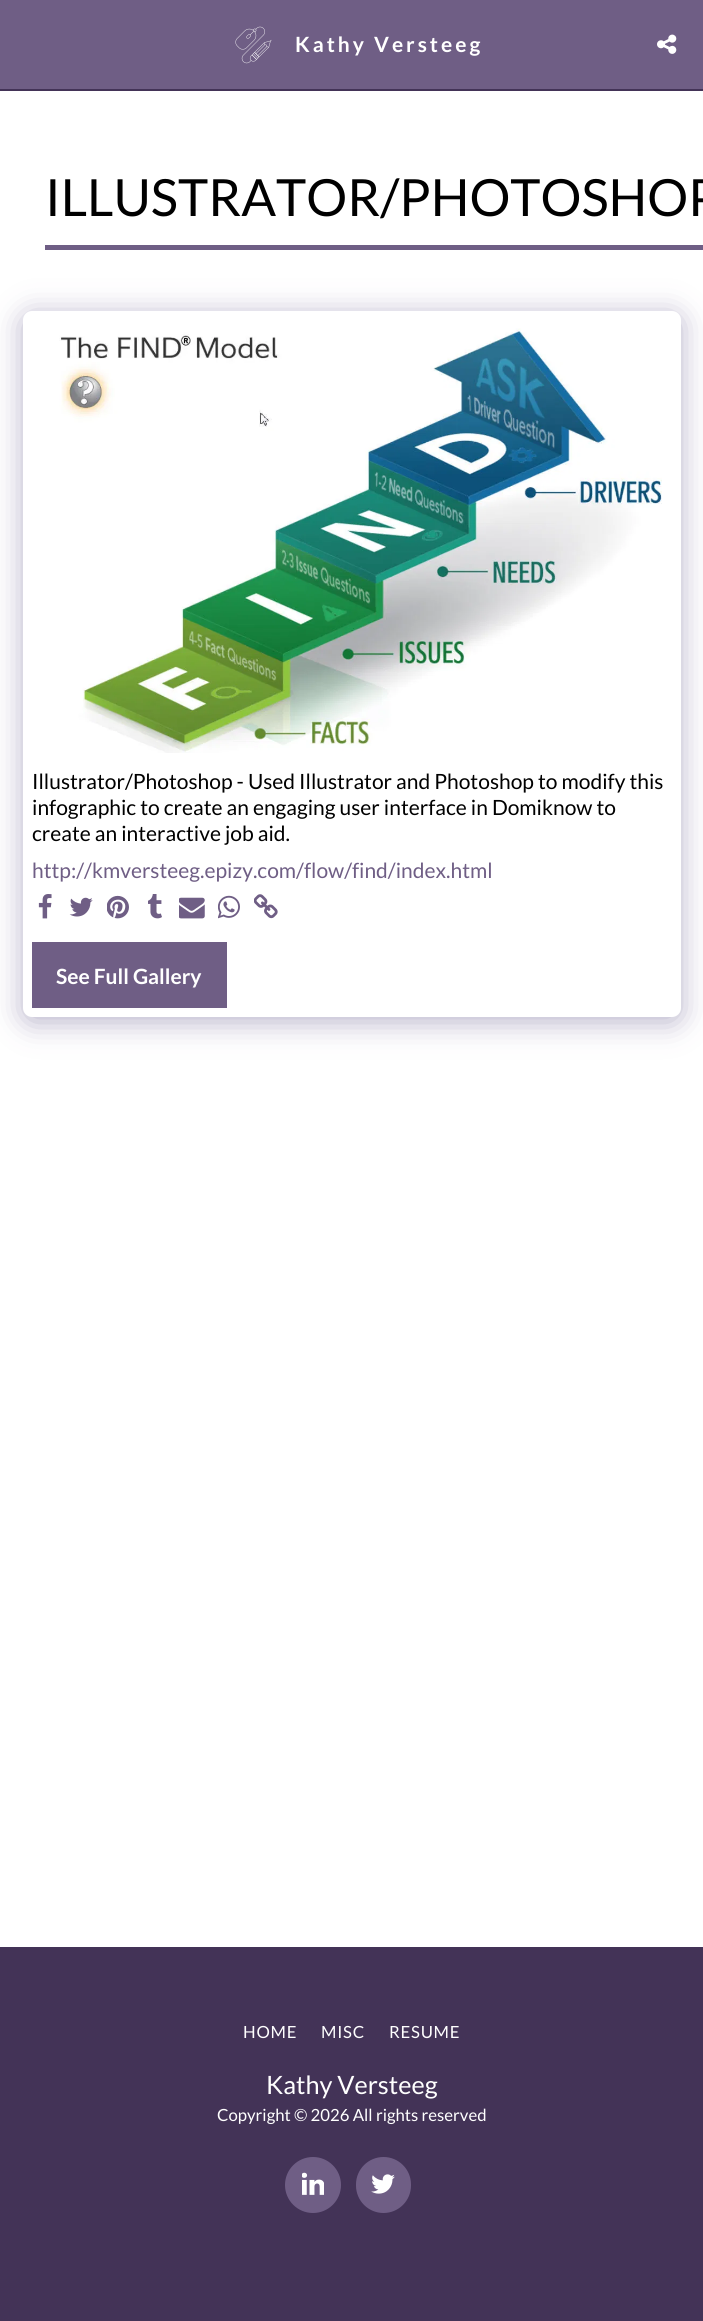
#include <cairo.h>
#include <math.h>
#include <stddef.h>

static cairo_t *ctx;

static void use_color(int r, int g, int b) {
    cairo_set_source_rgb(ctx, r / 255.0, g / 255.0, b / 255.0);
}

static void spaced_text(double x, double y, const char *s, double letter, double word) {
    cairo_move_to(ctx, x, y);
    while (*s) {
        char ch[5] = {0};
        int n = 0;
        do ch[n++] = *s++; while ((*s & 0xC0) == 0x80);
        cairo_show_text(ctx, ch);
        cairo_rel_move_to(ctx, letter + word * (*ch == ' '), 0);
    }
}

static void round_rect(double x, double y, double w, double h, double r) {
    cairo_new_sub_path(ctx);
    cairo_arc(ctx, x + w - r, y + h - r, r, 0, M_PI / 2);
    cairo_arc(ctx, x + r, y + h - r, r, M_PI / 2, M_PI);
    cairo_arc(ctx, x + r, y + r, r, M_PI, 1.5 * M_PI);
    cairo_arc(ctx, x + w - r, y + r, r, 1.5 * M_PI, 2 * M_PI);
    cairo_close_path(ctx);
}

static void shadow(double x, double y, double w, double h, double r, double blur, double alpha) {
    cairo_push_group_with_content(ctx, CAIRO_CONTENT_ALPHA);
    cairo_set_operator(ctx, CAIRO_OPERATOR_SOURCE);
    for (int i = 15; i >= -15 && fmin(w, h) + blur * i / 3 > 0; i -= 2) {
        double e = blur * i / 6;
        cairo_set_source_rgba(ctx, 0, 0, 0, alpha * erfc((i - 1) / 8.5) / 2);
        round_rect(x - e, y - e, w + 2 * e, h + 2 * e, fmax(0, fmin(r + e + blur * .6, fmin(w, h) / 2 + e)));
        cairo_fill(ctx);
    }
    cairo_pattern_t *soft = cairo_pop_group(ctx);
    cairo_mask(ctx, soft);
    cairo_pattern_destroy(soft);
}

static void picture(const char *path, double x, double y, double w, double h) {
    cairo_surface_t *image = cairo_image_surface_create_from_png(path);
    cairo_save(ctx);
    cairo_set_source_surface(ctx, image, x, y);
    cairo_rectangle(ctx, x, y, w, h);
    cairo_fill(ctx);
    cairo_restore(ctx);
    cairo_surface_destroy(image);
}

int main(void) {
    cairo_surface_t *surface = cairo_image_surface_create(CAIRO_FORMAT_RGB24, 703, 2321);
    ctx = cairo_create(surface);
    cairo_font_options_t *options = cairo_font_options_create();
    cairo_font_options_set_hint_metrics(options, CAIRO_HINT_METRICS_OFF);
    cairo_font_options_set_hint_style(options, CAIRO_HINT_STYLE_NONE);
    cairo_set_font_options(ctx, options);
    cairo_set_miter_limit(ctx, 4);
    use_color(255, 255, 255);
    cairo_paint(ctx);
    use_color(111, 94, 133);
    cairo_rectangle(ctx, 0, 0, 703, 89);
    cairo_fill(ctx);
    use_color(67, 51, 87);
    cairo_rectangle(ctx, 0, 89, 703, 2);
    cairo_fill(ctx);
    picture("img1.png", 235, 26, 37, 38);
    cairo_select_font_face(ctx, "Lato", CAIRO_FONT_SLANT_NORMAL, CAIRO_FONT_WEIGHT_BOLD);
    cairo_set_font_size(ctx, 21);
    use_color(255, 255, 255);
    spaced_text(295, 52, "Kathy Versteeg", 3, 0);
    picture("img2.png", 657, 34, 20, 20);
    use_color(111, 94, 133);
    cairo_rectangle(ctx, 45, 245, 658, 5);
    cairo_fill(ctx);
    cairo_select_font_face(ctx, "Lato", CAIRO_FONT_SLANT_NORMAL, CAIRO_FONT_WEIGHT_NORMAL);
    cairo_set_font_size(ctx, 51.25);
    use_color(0, 0, 0);
    cairo_move_to(ctx, 45, 216);
    cairo_show_text(ctx, "ILLUSTRATOR/PHOTOSHOP");
    use_color(77, 63, 122);
    shadow(23, 315, 658, 707, 9, 15, 0.4);
    use_color(255, 255, 255);
    round_rect(23, 311, 658, 706, 9);
    cairo_fill(ctx);
    picture("img3.png", 59, 328, 603, 425);
    cairo_set_font_size(ctx, 21);
    use_color(0, 0, 0);
    cairo_move_to(ctx, 32, 789);
    cairo_show_text(ctx, "Illustrator/Photoshop - Used Illustrator and Photoshop to modify this");
    cairo_move_to(ctx, 32, 815);
    cairo_show_text(ctx, "infographic to create an engaging user interface in Domiknow to");
    cairo_move_to(ctx, 32, 841);
    cairo_show_text(ctx, "create an interactive job aid.");
    use_color(111, 94, 133);
    cairo_move_to(ctx, 32, 878);
    cairo_show_text(ctx, "http://kmversteeg.epizy.com/flow/find/index.html");
    picture("img4.png", 38, 894, 14, 25);
    picture("img5.png", 69, 897, 24, 20);
    picture("img6.png", 107, 895, 22, 24);
    picture("img7.png", 148, 894, 14, 25);
    picture("img8.png", 179, 897, 26, 22);
    picture("img9.png", 218, 895, 22, 24);
    picture("img10.png", 254, 894, 24, 25);
    cairo_rectangle(ctx, 32, 942, 195, 66);
    cairo_fill(ctx);
    cairo_select_font_face(ctx, "Lato", CAIRO_FONT_SLANT_NORMAL, CAIRO_FONT_WEIGHT_BOLD);
    use_color(255, 255, 255);
    cairo_move_to(ctx, 56, 984);
    cairo_show_text(ctx, "See Full Gallery");
    use_color(67, 51, 87);
    cairo_rectangle(ctx, 0, 1947, 703, 374);
    cairo_fill(ctx);
    cairo_select_font_face(ctx, "Lato", CAIRO_FONT_SLANT_NORMAL, CAIRO_FONT_WEIGHT_NORMAL);
    cairo_set_font_size(ctx, 16.75);
    use_color(255, 255, 255);
    spaced_text(243, 2038, "HOME", 0.75, 0);
    spaced_text(321, 2038, "MISC", 0.75, 0);
    spaced_text(389, 2038, "RESUME", 0.75, 0);
    cairo_set_font_size(ctx, 25.25);
    cairo_move_to(ctx, 266, 2094);
    cairo_show_text(ctx, "Kathy Versteeg");
    cairo_set_font_size(ctx, 16.75);
    cairo_move_to(ctx, 217, 2121);
    cairo_show_text(ctx, "Copyright © 2026 All rights reserved");
    use_color(111, 94, 133);
    cairo_new_path(ctx);
    cairo_arc(ctx, 313, 2185, 27, 0, 2 * M_PI);
    cairo_fill_preserve(ctx);
    cairo_stroke(ctx);
    picture("img11.png", 302, 2172, 22, 23);
    round_rect(357, 2158, 53, 54, 26.5);
    cairo_fill_preserve(ctx);
    cairo_stroke(ctx);
    picture("img12.png", 371, 2174, 24, 20);
    cairo_surface_write_to_png(surface, "result.png");
    cairo_font_options_destroy(options);
    cairo_destroy(ctx);
    cairo_surface_destroy(surface);
    return 0;
}
